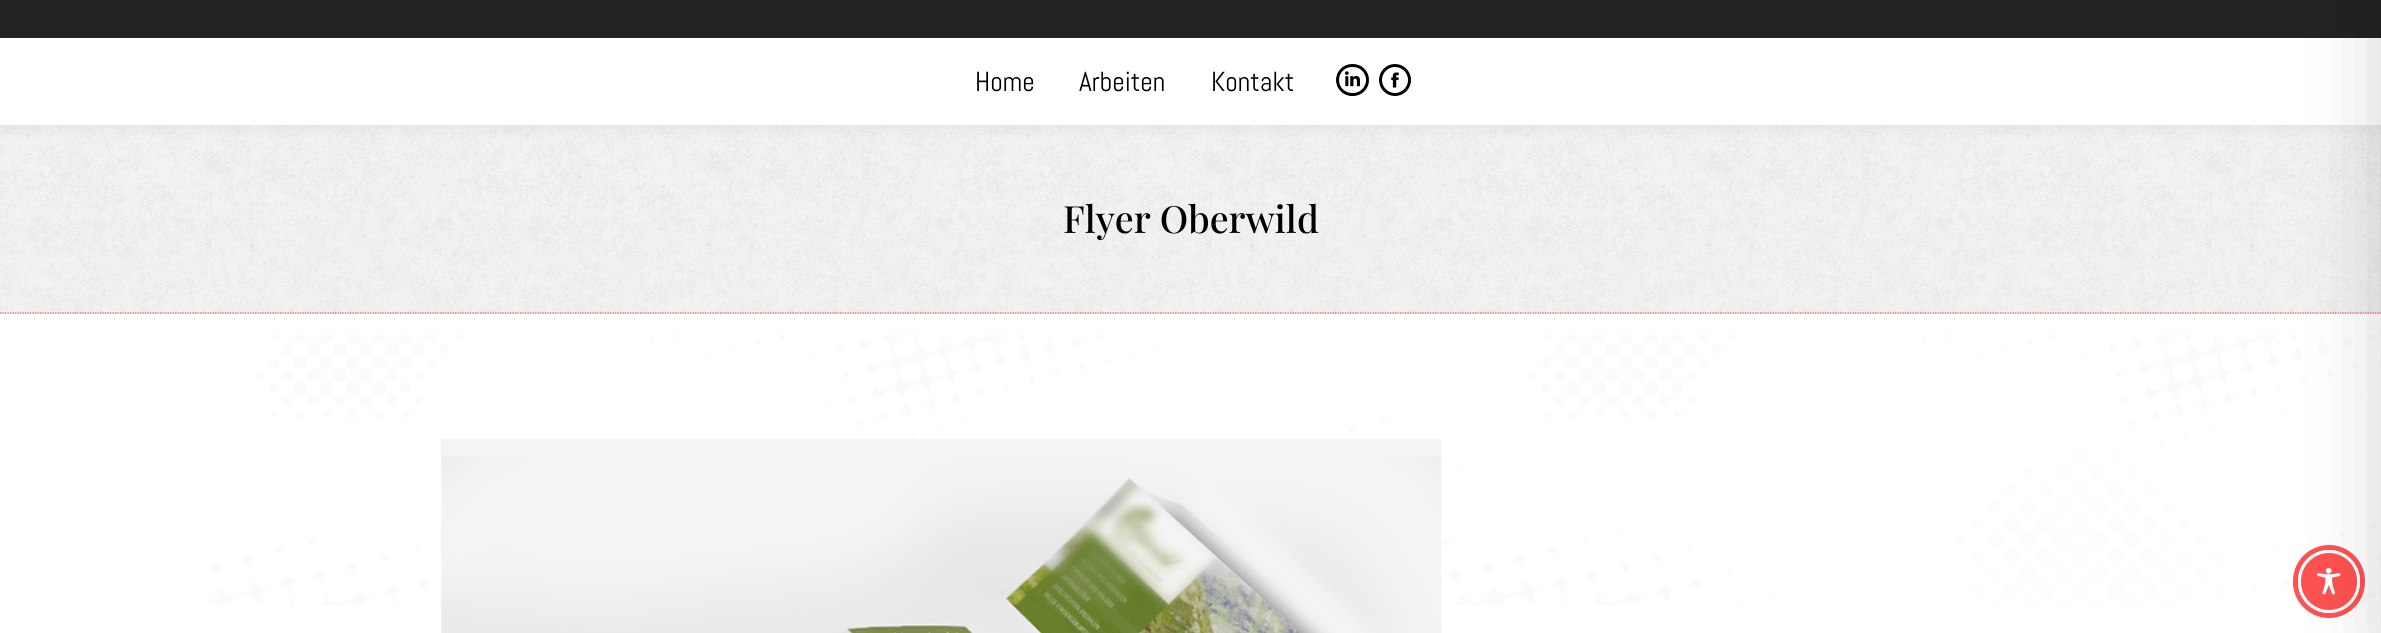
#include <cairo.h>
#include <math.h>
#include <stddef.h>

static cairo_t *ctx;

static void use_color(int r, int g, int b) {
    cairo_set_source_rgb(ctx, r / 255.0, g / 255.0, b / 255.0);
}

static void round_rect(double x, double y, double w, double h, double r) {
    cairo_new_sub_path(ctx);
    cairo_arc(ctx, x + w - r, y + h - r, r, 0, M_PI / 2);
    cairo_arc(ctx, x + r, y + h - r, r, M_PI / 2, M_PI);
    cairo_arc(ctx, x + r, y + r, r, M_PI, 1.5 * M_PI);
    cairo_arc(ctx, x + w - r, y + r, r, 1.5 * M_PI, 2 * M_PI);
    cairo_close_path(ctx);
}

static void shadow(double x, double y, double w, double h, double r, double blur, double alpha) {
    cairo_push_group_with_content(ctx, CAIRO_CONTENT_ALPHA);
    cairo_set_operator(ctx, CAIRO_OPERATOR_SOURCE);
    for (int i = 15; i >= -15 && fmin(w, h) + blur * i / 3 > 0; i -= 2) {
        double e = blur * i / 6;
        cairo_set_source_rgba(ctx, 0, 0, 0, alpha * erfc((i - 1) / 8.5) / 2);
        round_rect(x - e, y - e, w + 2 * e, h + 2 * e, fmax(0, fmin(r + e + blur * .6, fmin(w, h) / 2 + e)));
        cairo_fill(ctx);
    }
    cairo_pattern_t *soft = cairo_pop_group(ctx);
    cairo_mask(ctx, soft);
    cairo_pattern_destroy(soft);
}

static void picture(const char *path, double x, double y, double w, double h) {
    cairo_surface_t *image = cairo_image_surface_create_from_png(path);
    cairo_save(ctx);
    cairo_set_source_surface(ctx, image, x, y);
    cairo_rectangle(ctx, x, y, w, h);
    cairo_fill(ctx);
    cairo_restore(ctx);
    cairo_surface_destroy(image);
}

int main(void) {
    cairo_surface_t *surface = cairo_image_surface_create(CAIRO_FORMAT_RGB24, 2381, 633);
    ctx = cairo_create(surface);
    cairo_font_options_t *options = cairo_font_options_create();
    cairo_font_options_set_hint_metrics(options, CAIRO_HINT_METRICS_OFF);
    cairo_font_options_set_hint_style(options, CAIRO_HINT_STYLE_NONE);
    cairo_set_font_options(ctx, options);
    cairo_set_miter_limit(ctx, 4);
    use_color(255, 255, 255);
    cairo_paint(ctx);
    use_color(242, 242, 242);
    cairo_rectangle(ctx, 0, 125, 2381, 189);
    cairo_fill(ctx);
    picture("img3.png", 0, 125, 2381, 189);
    use_color(0, 0, 0);
    shadow(-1, -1, 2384, 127, 0, 9.5, 0.07);
    use_color(34, 34, 34);
    cairo_rectangle(ctx, 0, 0, 2381, 38);
    cairo_fill(ctx);
    use_color(255, 255, 255);
    cairo_rectangle(ctx, 0, 38, 2381, 87);
    cairo_fill(ctx);
    cairo_select_font_face(ctx, "Abel", CAIRO_FONT_SLANT_NORMAL, CAIRO_FONT_WEIGHT_NORMAL);
    cairo_set_font_size(ctx, 27.5);
    use_color(0, 0, 0);
    cairo_move_to(ctx, 975, 91);
    cairo_show_text(ctx, "Home");
    cairo_move_to(ctx, 1079, 91);
    cairo_show_text(ctx, "Arbeiten");
    cairo_move_to(ctx, 1211, 91);
    cairo_show_text(ctx, "Kontakt");
    round_rect(1337.5, 65.5, 30, 29, 14.5);
    cairo_set_line_width(ctx, 3);
    cairo_stroke(ctx);
    picture("img1.png", 1345, 71, 15, 16);
    cairo_arc(ctx, 1395, 80, 14.5, 0, 2 * M_PI);
    cairo_stroke(ctx);
    picture("img2.png", 1391, 72, 8, 16);
    cairo_new_path(ctx);
    cairo_move_to(ctx, 0, 313);
    cairo_line_to(ctx, 2381, 313);
    use_color(239, 74, 74);
    cairo_set_line_width(ctx, 1.2);
    cairo_set_dash(ctx, (double[]){1.25, 1.25}, 2, 0);
    cairo_stroke(ctx);
    cairo_select_font_face(ctx, "Playfair Display Medium", CAIRO_FONT_SLANT_NORMAL, CAIRO_FONT_WEIGHT_NORMAL);
    cairo_set_font_size(ctx, 37.5);
    use_color(0, 0, 0);
    cairo_move_to(ctx, 1063, 233);
    cairo_show_text(ctx, "Flyer Oberwild");
    picture("img4.png", 207, 335, 2171, 270);
    picture("img5.png", 441, 439, 1001, 194);
    round_rect(2295.5, 547.5, 67, 68, 33.5);
    use_color(255, 81, 81);
    cairo_set_line_width(ctx, 5);
    cairo_set_dash(ctx, NULL, 0, 0);
    cairo_stroke(ctx);
    round_rect(2299.5, 551.5, 59, 60, 29.5);
    cairo_fill_preserve(ctx);
    use_color(255, 255, 255);
    cairo_set_line_width(ctx, 3);
    cairo_stroke(ctx);
    picture("img6.png", 2317, 568, 24, 27);
    use_color(0, 0, 0);
    shadow(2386, 13, 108, 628, 0, 37.5, 0.2);
    cairo_surface_write_to_png(surface, "result.png");
    cairo_font_options_destroy(options);
    cairo_destroy(ctx);
    cairo_surface_destroy(surface);
    return 0;
}
